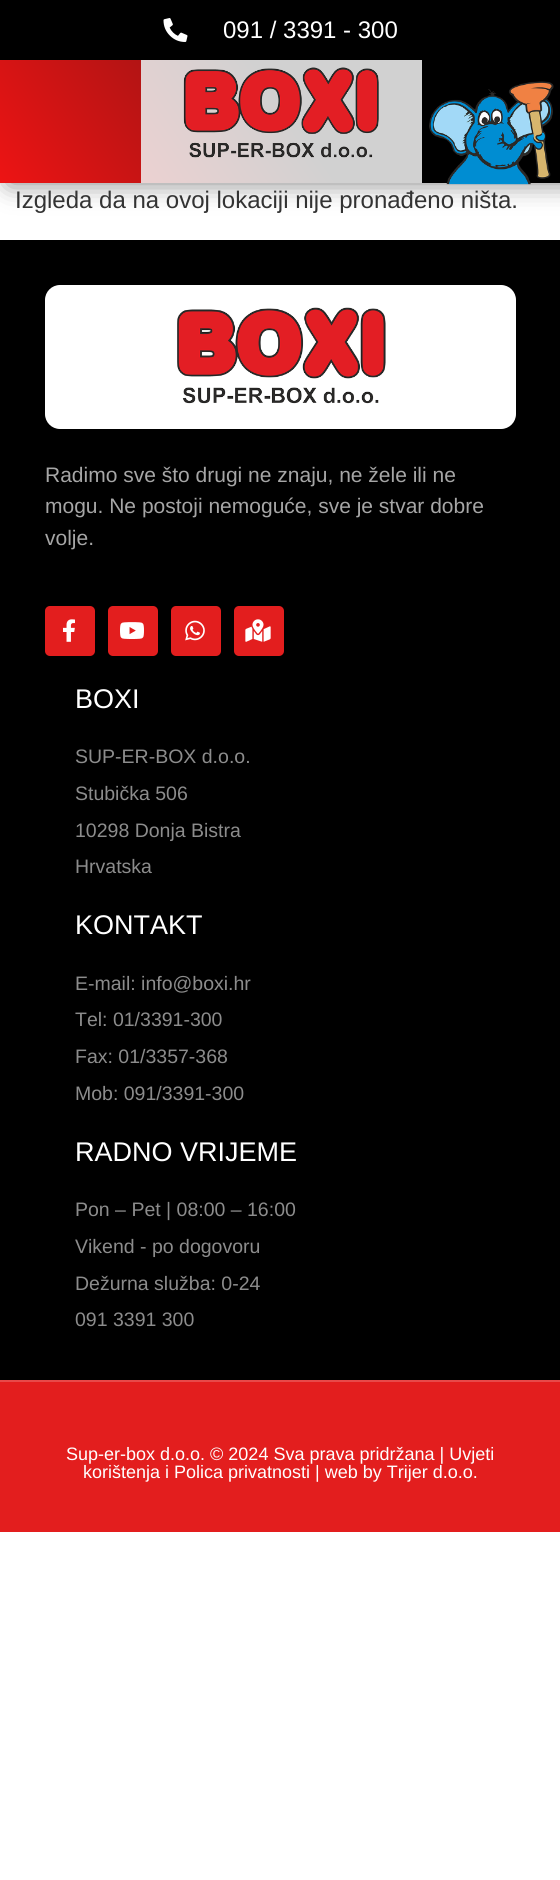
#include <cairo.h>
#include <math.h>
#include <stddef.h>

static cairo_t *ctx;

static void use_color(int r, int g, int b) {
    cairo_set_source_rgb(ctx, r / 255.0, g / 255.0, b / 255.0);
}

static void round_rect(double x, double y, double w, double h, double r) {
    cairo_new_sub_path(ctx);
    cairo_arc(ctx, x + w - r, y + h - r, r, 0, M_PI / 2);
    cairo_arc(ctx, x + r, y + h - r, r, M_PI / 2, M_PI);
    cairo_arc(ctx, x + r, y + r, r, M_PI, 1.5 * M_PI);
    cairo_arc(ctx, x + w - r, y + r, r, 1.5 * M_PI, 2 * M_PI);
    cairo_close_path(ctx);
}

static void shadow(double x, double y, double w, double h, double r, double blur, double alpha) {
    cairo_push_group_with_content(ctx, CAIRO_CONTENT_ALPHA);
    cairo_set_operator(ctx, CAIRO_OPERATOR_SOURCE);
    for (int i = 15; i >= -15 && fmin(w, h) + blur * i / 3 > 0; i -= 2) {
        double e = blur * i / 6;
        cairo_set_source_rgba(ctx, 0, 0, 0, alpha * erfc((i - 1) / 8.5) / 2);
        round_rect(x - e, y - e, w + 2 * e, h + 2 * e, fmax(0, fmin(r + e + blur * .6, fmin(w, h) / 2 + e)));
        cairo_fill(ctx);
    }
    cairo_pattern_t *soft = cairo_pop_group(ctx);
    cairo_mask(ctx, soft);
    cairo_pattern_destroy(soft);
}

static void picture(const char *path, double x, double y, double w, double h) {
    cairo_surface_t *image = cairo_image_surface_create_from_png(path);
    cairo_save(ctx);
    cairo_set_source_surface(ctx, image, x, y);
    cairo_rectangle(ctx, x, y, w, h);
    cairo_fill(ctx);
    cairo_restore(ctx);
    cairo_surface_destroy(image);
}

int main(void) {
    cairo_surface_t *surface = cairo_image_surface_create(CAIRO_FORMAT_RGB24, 560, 1880);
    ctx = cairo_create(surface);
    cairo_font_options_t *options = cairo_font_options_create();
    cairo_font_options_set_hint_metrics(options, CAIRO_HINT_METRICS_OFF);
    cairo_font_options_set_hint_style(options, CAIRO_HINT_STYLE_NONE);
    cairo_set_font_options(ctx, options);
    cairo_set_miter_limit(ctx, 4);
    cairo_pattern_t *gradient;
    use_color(255, 255, 255);
    cairo_paint(ctx);
    use_color(0, 0, 0);
    shadow(9, 0, 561, 183, 0, 13, 0.5);
    use_color(0, 0, 0);
    cairo_rectangle(ctx, 0, 0, 560, 60);
    cairo_fill(ctx);
    picture("img1.png", 163, 18, 25, 24);
    cairo_select_font_face(ctx, "Liberation Sans", CAIRO_FONT_SLANT_NORMAL, CAIRO_FONT_WEIGHT_NORMAL);
    cairo_set_font_size(ctx, 24);
    use_color(255, 255, 255);
    cairo_move_to(ctx, 223, 38);
    cairo_show_text(ctx, "091 / 3391 - 300");
    gradient = cairo_pattern_create_linear(49, 253, 512, -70);
    cairo_pattern_add_color_stop_rgba(gradient, 0, 1, 0.82, 0.82, 1);
    cairo_pattern_add_color_stop_rgba(gradient, 0.49, 0.82, 0.82, 0.82, 1);
    cairo_set_source(ctx, gradient);
    cairo_pattern_destroy(gradient);
    cairo_rectangle(ctx, 141, 60, 281, 123);
    cairo_fill(ctx);
    picture("img2.png", 183, 67, 196, 91);
    gradient = cairo_pattern_create_linear(49, 253, 512, -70);
    cairo_pattern_add_color_stop_rgba(gradient, 0, 1, 0, 0, 1);
    cairo_pattern_add_color_stop_rgba(gradient, 0.49, 0, 0, 0, 1);
    cairo_set_source(ctx, gradient);
    cairo_pattern_destroy(gradient);
    cairo_rectangle(ctx, 422, 60, 138, 123);
    cairo_fill(ctx);
    picture("img3.png", 429, 81, 125, 104);
    gradient = cairo_pattern_create_linear(49, 253, 512, -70);
    cairo_pattern_add_color_stop_rgba(gradient, 0, 0.929, 0.078, 0.078, 1);
    cairo_pattern_add_color_stop_rgba(gradient, 0.49, 0.588, 0.078, 0.078, 1);
    cairo_set_source(ctx, gradient);
    cairo_pattern_destroy(gradient);
    cairo_rectangle(ctx, 0, 60, 141, 123);
    cairo_fill(ctx);
    use_color(51, 51, 51);
    cairo_move_to(ctx, 15, 208);
    cairo_show_text(ctx, "Izgleda da na ovoj lokaciji nije pronađeno ništa.");
    use_color(0, 0, 0);
    cairo_rectangle(ctx, 0, 240, 560, 1140);
    cairo_fill(ctx);
    use_color(255, 255, 255);
    round_rect(45, 285, 471, 144, 15);
    cairo_fill(ctx);
    picture("img4.png", 177, 307, 209, 97);
    cairo_set_font_size(ctx, 21);
    use_color(166, 166, 166);
    cairo_move_to(ctx, 45, 482);
    cairo_show_text(ctx, "Radimo sve što drugi ne znaju, ne žele ili ne");
    cairo_move_to(ctx, 45, 513);
    cairo_show_text(ctx, "mogu. Ne postoji nemoguće, sve je stvar dobre");
    cairo_move_to(ctx, 45, 545);
    cairo_show_text(ctx, "volje.");
    use_color(227, 30, 30);
    round_rect(45, 606, 50, 50, 5);
    cairo_fill(ctx);
    picture("img5.png", 63, 619, 12, 23);
    round_rect(108, 606, 50, 50, 5);
    cairo_fill(ctx);
    picture("img6.png", 120, 622, 24, 17);
    round_rect(171, 606, 50, 50, 5);
    cairo_fill(ctx);
    picture("img7.png", 185, 620, 20, 21);
    round_rect(234, 606, 50, 50, 5);
    cairo_fill(ctx);
    picture("img8.png", 245, 619, 26, 23);
    cairo_set_font_size(ctx, 27);
    use_color(255, 255, 255);
    cairo_move_to(ctx, 75, 708);
    cairo_show_text(ctx, "BOXI");
    cairo_set_font_size(ctx, 19.5);
    use_color(140, 140, 140);
    cairo_move_to(ctx, 75, 763);
    cairo_show_text(ctx, "SUP-ER-BOX d.o.o.");
    cairo_move_to(ctx, 75, 800);
    cairo_show_text(ctx, "Stubička 506");
    cairo_move_to(ctx, 75, 837);
    cairo_show_text(ctx, "10298 Donja Bistra");
    cairo_move_to(ctx, 75, 873);
    cairo_show_text(ctx, "Hrvatska");
    cairo_set_font_size(ctx, 27);
    use_color(255, 255, 255);
    cairo_move_to(ctx, 75, 934);
    cairo_show_text(ctx, "KONTAKT");
    cairo_set_font_size(ctx, 19.5);
    use_color(140, 140, 140);
    cairo_move_to(ctx, 75, 990);
    cairo_show_text(ctx, "E-mail: info@boxi.hr");
    cairo_move_to(ctx, 75, 1026);
    cairo_show_text(ctx, "Tel: 01/3391-300");
    cairo_move_to(ctx, 75, 1063);
    cairo_show_text(ctx, "Fax: 01/3357-368");
    cairo_move_to(ctx, 75, 1100);
    cairo_show_text(ctx, "Mob: 091/3391-300");
    cairo_set_font_size(ctx, 27);
    use_color(255, 255, 255);
    cairo_move_to(ctx, 75, 1161);
    cairo_show_text(ctx, "RADNO VRIJEME");
    cairo_set_font_size(ctx, 19.5);
    use_color(140, 140, 140);
    cairo_move_to(ctx, 75, 1216);
    cairo_show_text(ctx, "Pon – Pet | 08:00 – 16:00");
    cairo_move_to(ctx, 75, 1253);
    cairo_show_text(ctx, "Vikend - po dogovoru");
    cairo_move_to(ctx, 75, 1290);
    cairo_show_text(ctx, "Dežurna služba: 0-24");
    cairo_move_to(ctx, 75, 1326);
    cairo_show_text(ctx, "091 3391 300");
    use_color(227, 30, 30);
    cairo_rectangle(ctx, 0, 1382, 560, 150);
    cairo_fill(ctx);
    use_color(232, 73, 73);
    cairo_rectangle(ctx, 0, 1380, 560, 2);
    cairo_fill(ctx);
    cairo_set_font_size(ctx, 18);
    use_color(255, 255, 255);
    cairo_move_to(ctx, 66, 1460);
    cairo_show_text(ctx, "Sup-er-box d.o.o. © 2024 Sva prava pridržana | Uvjeti");
    cairo_move_to(ctx, 83, 1478);
    cairo_show_text(ctx, "korištenja i Polica privatnosti | web by Trijer d.o.o.");
    cairo_surface_write_to_png(surface, "result.png");
    cairo_font_options_destroy(options);
    cairo_destroy(ctx);
    cairo_surface_destroy(surface);
    return 0;
}
